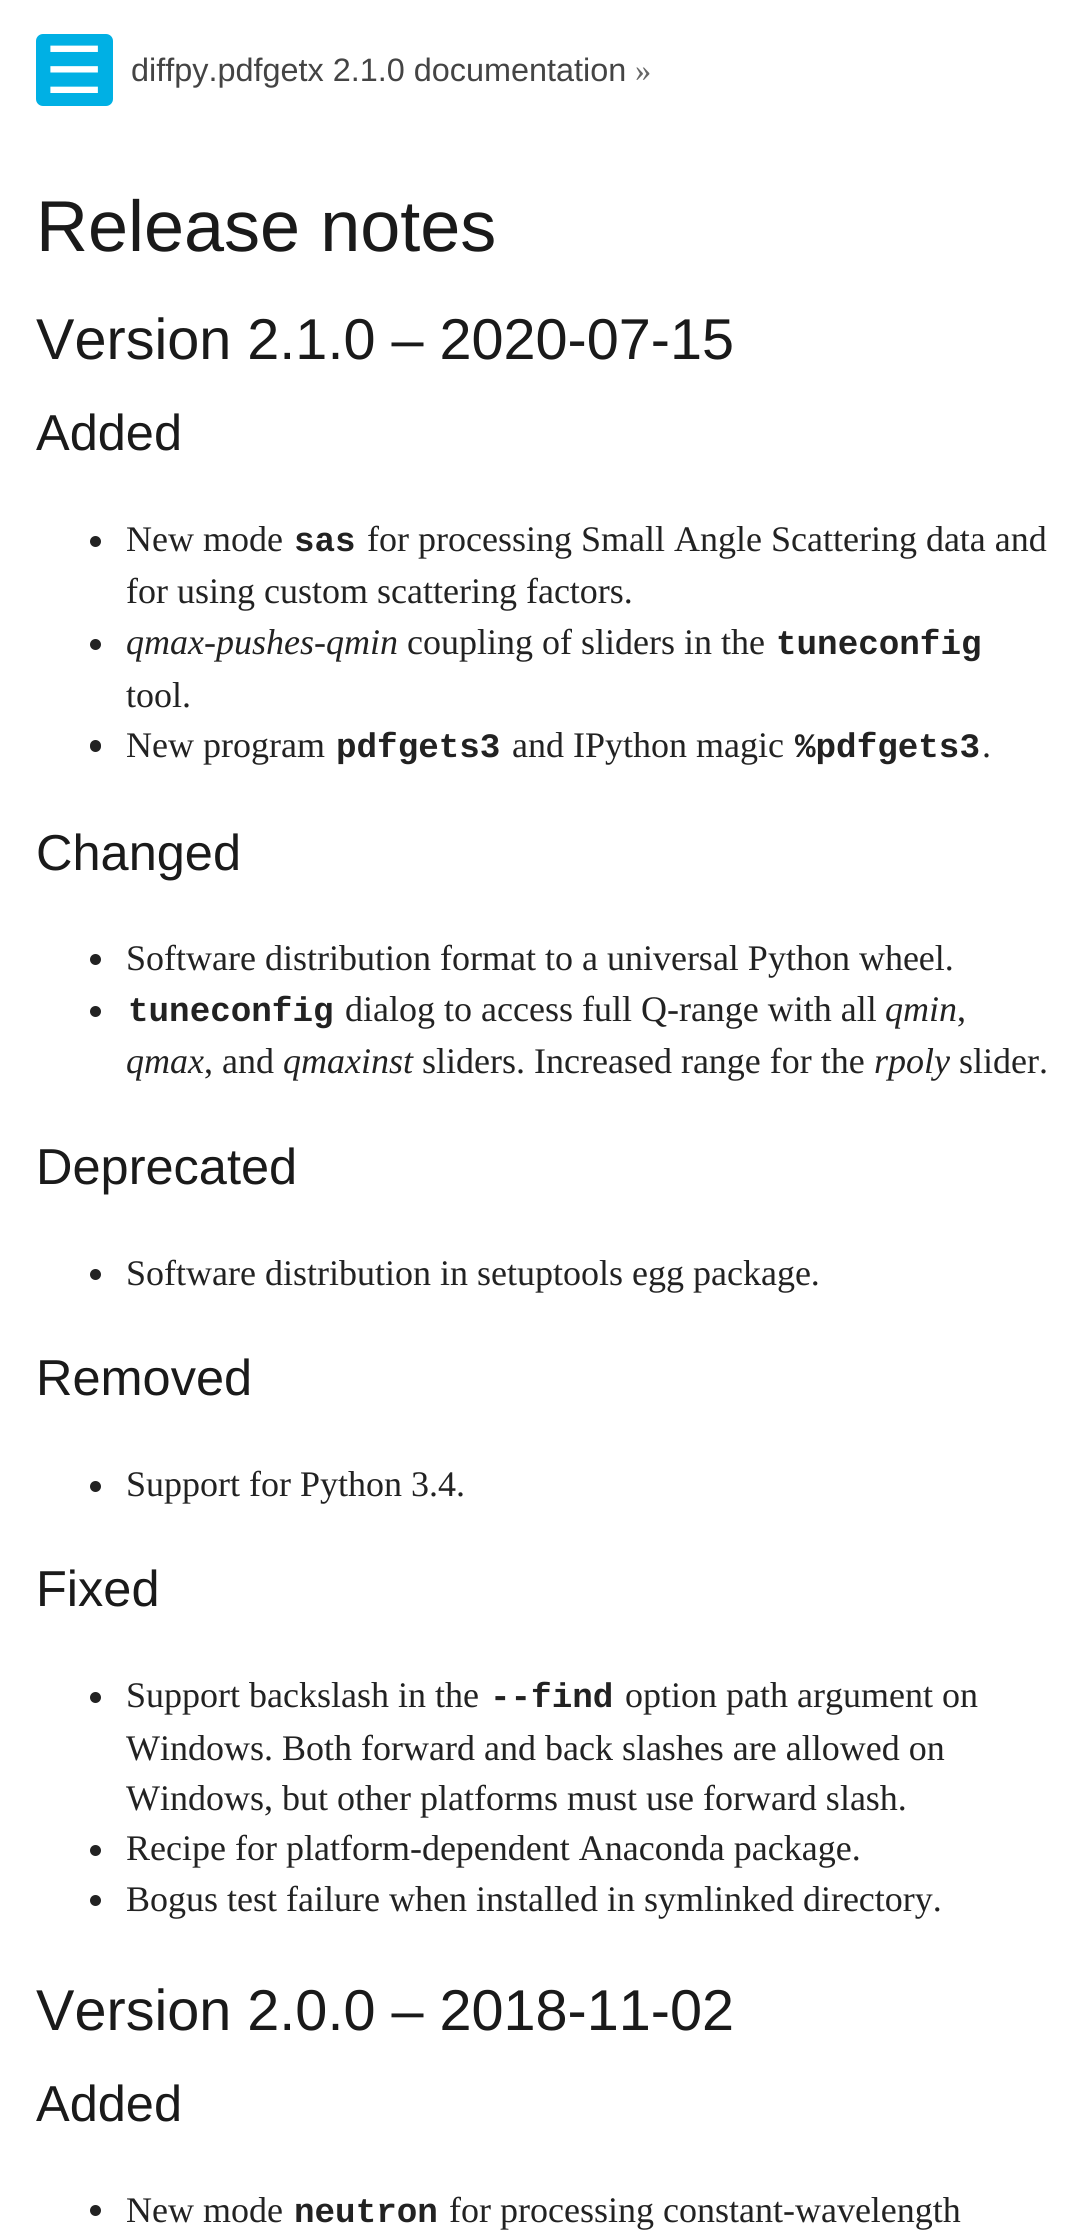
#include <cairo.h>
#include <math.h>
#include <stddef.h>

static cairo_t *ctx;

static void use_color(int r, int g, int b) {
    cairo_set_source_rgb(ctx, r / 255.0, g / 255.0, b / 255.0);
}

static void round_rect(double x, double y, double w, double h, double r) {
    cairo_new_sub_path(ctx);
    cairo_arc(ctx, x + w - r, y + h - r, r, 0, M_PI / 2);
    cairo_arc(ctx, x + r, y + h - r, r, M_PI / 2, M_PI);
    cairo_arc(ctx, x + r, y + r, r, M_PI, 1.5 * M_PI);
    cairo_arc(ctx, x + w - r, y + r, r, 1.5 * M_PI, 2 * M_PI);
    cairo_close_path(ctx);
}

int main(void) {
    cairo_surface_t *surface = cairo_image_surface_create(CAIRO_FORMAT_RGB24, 1090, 2230);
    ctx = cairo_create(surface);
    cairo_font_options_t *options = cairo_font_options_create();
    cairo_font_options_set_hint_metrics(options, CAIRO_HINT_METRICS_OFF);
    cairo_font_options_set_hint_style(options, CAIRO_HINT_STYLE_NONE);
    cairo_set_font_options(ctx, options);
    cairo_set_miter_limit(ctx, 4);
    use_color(255, 255, 255);
    cairo_paint(ctx);
    use_color(0, 176, 228);
    round_rect(36, 34, 77, 72, 7);
    cairo_fill(ctx);
    cairo_select_font_face(ctx, "DejaVu Sans", CAIRO_FONT_SLANT_NORMAL, CAIRO_FONT_WEIGHT_NORMAL);
    cairo_set_font_size(ctx, 65);
    use_color(255, 255, 255);
    cairo_move_to(ctx, 45, 93);
    cairo_show_text(ctx, "☰");
    cairo_select_font_face(ctx, "Liberation Sans", CAIRO_FONT_SLANT_NORMAL, CAIRO_FONT_WEIGHT_NORMAL);
    cairo_set_font_size(ctx, 32.4);
    use_color(68, 68, 68);
    cairo_move_to(ctx, 131, 81);
    cairo_show_text(ctx, "diffpy.pdfgetx 2.1.0 documentation");
    cairo_select_font_face(ctx, "Liberation Serif", CAIRO_FONT_SLANT_NORMAL, CAIRO_FONT_WEIGHT_NORMAL);
    use_color(102, 102, 102);
    cairo_move_to(ctx, 635, 81);
    cairo_show_text(ctx, "»");
    cairo_select_font_face(ctx, "Liberation Sans", CAIRO_FONT_SLANT_NORMAL, CAIRO_FONT_WEIGHT_NORMAL);
    cairo_set_font_size(ctx, 72);
    use_color(26, 26, 26);
    cairo_move_to(ctx, 36, 251);
    cairo_show_text(ctx, "Release notes");
    cairo_set_font_size(ctx, 57.6);
    cairo_move_to(ctx, 36, 359);
    cairo_show_text(ctx, "Version 2.1.0 – 2020-07-15");
    cairo_set_font_size(ctx, 50.5);
    cairo_move_to(ctx, 36, 450);
    cairo_show_text(ctx, "Added");
    use_color(34, 34, 34);
    cairo_new_path(ctx);
    cairo_arc(ctx, 95.5, 541.5, 5.5, 0, 2 * M_PI);
    cairo_fill(ctx);
    cairo_select_font_face(ctx, "Liberation Serif", CAIRO_FONT_SLANT_NORMAL, CAIRO_FONT_WEIGHT_NORMAL);
    cairo_set_font_size(ctx, 36);
    cairo_move_to(ctx, 126, 551);
    cairo_show_text(ctx, "New mode");
    cairo_select_font_face(ctx, "Liberation Mono", CAIRO_FONT_SLANT_NORMAL, CAIRO_FONT_WEIGHT_BOLD);
    cairo_set_font_size(ctx, 34.25);
    cairo_move_to(ctx, 294, 551);
    cairo_show_text(ctx, "sas");
    cairo_select_font_face(ctx, "Liberation Serif", CAIRO_FONT_SLANT_NORMAL, CAIRO_FONT_WEIGHT_NORMAL);
    cairo_set_font_size(ctx, 36);
    cairo_move_to(ctx, 367, 551);
    cairo_show_text(ctx, "for processing Small Angle Scattering data and");
    cairo_move_to(ctx, 126, 603);
    cairo_show_text(ctx, "for using custom scattering factors.");
    cairo_new_path(ctx);
    cairo_arc(ctx, 95.5, 644.5, 5.5, 0, 2 * M_PI);
    cairo_fill(ctx);
    cairo_select_font_face(ctx, "Liberation Serif", CAIRO_FONT_SLANT_ITALIC, CAIRO_FONT_WEIGHT_NORMAL);
    cairo_move_to(ctx, 126, 654);
    cairo_show_text(ctx, "qmax-pushes-qmin");
    cairo_select_font_face(ctx, "Liberation Serif", CAIRO_FONT_SLANT_NORMAL, CAIRO_FONT_WEIGHT_NORMAL);
    cairo_move_to(ctx, 407, 654);
    cairo_show_text(ctx, "coupling of sliders in the");
    cairo_select_font_face(ctx, "Liberation Mono", CAIRO_FONT_SLANT_NORMAL, CAIRO_FONT_WEIGHT_BOLD);
    cairo_set_font_size(ctx, 34.25);
    cairo_move_to(ctx, 776, 654);
    cairo_show_text(ctx, "tuneconfig");
    cairo_select_font_face(ctx, "Liberation Serif", CAIRO_FONT_SLANT_NORMAL, CAIRO_FONT_WEIGHT_NORMAL);
    cairo_set_font_size(ctx, 36);
    cairo_move_to(ctx, 126, 707);
    cairo_show_text(ctx, "tool.");
    round_rect(90, 740, 11, 12, 5.5);
    cairo_fill(ctx);
    cairo_move_to(ctx, 126, 757);
    cairo_show_text(ctx, "New program");
    cairo_select_font_face(ctx, "Liberation Mono", CAIRO_FONT_SLANT_NORMAL, CAIRO_FONT_WEIGHT_BOLD);
    cairo_set_font_size(ctx, 34.25);
    cairo_move_to(ctx, 336, 757);
    cairo_show_text(ctx, "pdfgets3");
    cairo_select_font_face(ctx, "Liberation Serif", CAIRO_FONT_SLANT_NORMAL, CAIRO_FONT_WEIGHT_NORMAL);
    cairo_set_font_size(ctx, 36);
    cairo_move_to(ctx, 512, 757);
    cairo_show_text(ctx, "and IPython magic");
    cairo_select_font_face(ctx, "Liberation Mono", CAIRO_FONT_SLANT_NORMAL, CAIRO_FONT_WEIGHT_BOLD);
    cairo_set_font_size(ctx, 34.25);
    cairo_move_to(ctx, 795, 757);
    cairo_show_text(ctx, "%pdfgets3");
    cairo_select_font_face(ctx, "Liberation Serif", CAIRO_FONT_SLANT_NORMAL, CAIRO_FONT_WEIGHT_NORMAL);
    cairo_set_font_size(ctx, 36);
    cairo_move_to(ctx, 982, 757);
    cairo_show_text(ctx, ".");
    cairo_select_font_face(ctx, "Liberation Sans", CAIRO_FONT_SLANT_NORMAL, CAIRO_FONT_WEIGHT_NORMAL);
    cairo_set_font_size(ctx, 50.5);
    use_color(26, 26, 26);
    cairo_move_to(ctx, 36, 870);
    cairo_show_text(ctx, "Changed");
    use_color(34, 34, 34);
    cairo_new_path(ctx);
    cairo_arc(ctx, 95.5, 959.5, 5.5, 0, 2 * M_PI);
    cairo_fill(ctx);
    cairo_select_font_face(ctx, "Liberation Serif", CAIRO_FONT_SLANT_NORMAL, CAIRO_FONT_WEIGHT_NORMAL);
    cairo_set_font_size(ctx, 36);
    cairo_move_to(ctx, 126, 970);
    cairo_show_text(ctx, "Software distribution format to a universal Python wheel.");
    cairo_new_path(ctx);
    cairo_arc(ctx, 95.5, 1011.5, 5.5, 0, 2 * M_PI);
    cairo_fill(ctx);
    cairo_select_font_face(ctx, "Liberation Mono", CAIRO_FONT_SLANT_NORMAL, CAIRO_FONT_WEIGHT_BOLD);
    cairo_set_font_size(ctx, 34.25);
    cairo_move_to(ctx, 128, 1021);
    cairo_show_text(ctx, "tuneconfig");
    cairo_select_font_face(ctx, "Liberation Serif", CAIRO_FONT_SLANT_NORMAL, CAIRO_FONT_WEIGHT_NORMAL);
    cairo_set_font_size(ctx, 36);
    cairo_move_to(ctx, 345, 1021);
    cairo_show_text(ctx, "dialog to access full Q-range with all");
    cairo_select_font_face(ctx, "Liberation Serif", CAIRO_FONT_SLANT_ITALIC, CAIRO_FONT_WEIGHT_NORMAL);
    cairo_move_to(ctx, 885, 1021);
    cairo_show_text(ctx, "qmin");
    cairo_select_font_face(ctx, "Liberation Serif", CAIRO_FONT_SLANT_NORMAL, CAIRO_FONT_WEIGHT_NORMAL);
    cairo_move_to(ctx, 957, 1021);
    cairo_show_text(ctx, ",");
    cairo_select_font_face(ctx, "Liberation Serif", CAIRO_FONT_SLANT_ITALIC, CAIRO_FONT_WEIGHT_NORMAL);
    cairo_move_to(ctx, 126, 1073);
    cairo_show_text(ctx, "qmax");
    cairo_select_font_face(ctx, "Liberation Serif", CAIRO_FONT_SLANT_NORMAL, CAIRO_FONT_WEIGHT_NORMAL);
    cairo_move_to(ctx, 204, 1073);
    cairo_show_text(ctx, ", and");
    cairo_select_font_face(ctx, "Liberation Serif", CAIRO_FONT_SLANT_ITALIC, CAIRO_FONT_WEIGHT_NORMAL);
    cairo_move_to(ctx, 283, 1073);
    cairo_show_text(ctx, "qmaxinst");
    cairo_select_font_face(ctx, "Liberation Serif", CAIRO_FONT_SLANT_NORMAL, CAIRO_FONT_WEIGHT_NORMAL);
    cairo_move_to(ctx, 422, 1073);
    cairo_show_text(ctx, "sliders. Increased range for the");
    cairo_select_font_face(ctx, "Liberation Serif", CAIRO_FONT_SLANT_ITALIC, CAIRO_FONT_WEIGHT_NORMAL);
    cairo_move_to(ctx, 874, 1073);
    cairo_show_text(ctx, "rpoly");
    cairo_select_font_face(ctx, "Liberation Serif", CAIRO_FONT_SLANT_NORMAL, CAIRO_FONT_WEIGHT_NORMAL);
    cairo_move_to(ctx, 959, 1073);
    cairo_show_text(ctx, "slider.");
    cairo_select_font_face(ctx, "Liberation Sans", CAIRO_FONT_SLANT_NORMAL, CAIRO_FONT_WEIGHT_NORMAL);
    cairo_set_font_size(ctx, 50.5);
    use_color(26, 26, 26);
    cairo_move_to(ctx, 36, 1184);
    cairo_show_text(ctx, "Deprecated");
    use_color(34, 34, 34);
    cairo_new_path(ctx);
    cairo_arc(ctx, 95.5, 1274.5, 5.5, 0, 2 * M_PI);
    cairo_fill(ctx);
    cairo_select_font_face(ctx, "Liberation Serif", CAIRO_FONT_SLANT_NORMAL, CAIRO_FONT_WEIGHT_NORMAL);
    cairo_set_font_size(ctx, 36);
    cairo_move_to(ctx, 126, 1285);
    cairo_show_text(ctx, "Software distribution in setuptools egg package.");
    cairo_select_font_face(ctx, "Liberation Sans", CAIRO_FONT_SLANT_NORMAL, CAIRO_FONT_WEIGHT_NORMAL);
    cairo_set_font_size(ctx, 50.5);
    use_color(26, 26, 26);
    cairo_move_to(ctx, 36, 1395);
    cairo_show_text(ctx, "Removed");
    use_color(34, 34, 34);
    cairo_new_path(ctx);
    cairo_arc(ctx, 95.5, 1486.5, 5.5, 0, 2 * M_PI);
    cairo_fill(ctx);
    cairo_select_font_face(ctx, "Liberation Serif", CAIRO_FONT_SLANT_NORMAL, CAIRO_FONT_WEIGHT_NORMAL);
    cairo_set_font_size(ctx, 36);
    cairo_move_to(ctx, 126, 1496);
    cairo_show_text(ctx, "Support for Python 3.4.");
    cairo_select_font_face(ctx, "Liberation Sans", CAIRO_FONT_SLANT_NORMAL, CAIRO_FONT_WEIGHT_NORMAL);
    cairo_set_font_size(ctx, 50.5);
    use_color(26, 26, 26);
    cairo_move_to(ctx, 36, 1606);
    cairo_show_text(ctx, "Fixed");
    use_color(34, 34, 34);
    cairo_new_path(ctx);
    cairo_arc(ctx, 95.5, 1697.5, 5.5, 0, 2 * M_PI);
    cairo_fill(ctx);
    cairo_select_font_face(ctx, "Liberation Serif", CAIRO_FONT_SLANT_NORMAL, CAIRO_FONT_WEIGHT_NORMAL);
    cairo_set_font_size(ctx, 36);
    cairo_move_to(ctx, 126, 1707);
    cairo_show_text(ctx, "Support backslash in the");
    cairo_select_font_face(ctx, "Liberation Mono", CAIRO_FONT_SLANT_NORMAL, CAIRO_FONT_WEIGHT_BOLD);
    cairo_set_font_size(ctx, 34.25);
    cairo_move_to(ctx, 490, 1707);
    cairo_show_text(ctx, "--find");
    cairo_select_font_face(ctx, "Liberation Serif", CAIRO_FONT_SLANT_NORMAL, CAIRO_FONT_WEIGHT_NORMAL);
    cairo_set_font_size(ctx, 36);
    cairo_move_to(ctx, 625, 1707);
    cairo_show_text(ctx, "option path argument on");
    cairo_move_to(ctx, 126, 1760);
    cairo_show_text(ctx, "Windows. Both forward and back slashes are allowed on");
    cairo_move_to(ctx, 126, 1810);
    cairo_show_text(ctx, "Windows, but other platforms must use forward slash.");
    cairo_new_path(ctx);
    cairo_arc(ctx, 95.5, 1850.5, 5.5, 0, 2 * M_PI);
    cairo_fill(ctx);
    cairo_move_to(ctx, 126, 1860);
    cairo_show_text(ctx, "Recipe for platform-dependent Anaconda package.");
    cairo_new_path(ctx);
    cairo_arc(ctx, 95.5, 1900.5, 5.5, 0, 2 * M_PI);
    cairo_fill(ctx);
    cairo_move_to(ctx, 126, 1911);
    cairo_show_text(ctx, "Bogus test failure when installed in symlinked directory.");
    cairo_select_font_face(ctx, "Liberation Sans", CAIRO_FONT_SLANT_NORMAL, CAIRO_FONT_WEIGHT_NORMAL);
    cairo_set_font_size(ctx, 57.6);
    use_color(26, 26, 26);
    cairo_move_to(ctx, 36, 2030);
    cairo_show_text(ctx, "Version 2.0.0 – 2018-11-02");
    cairo_set_font_size(ctx, 50.5);
    cairo_move_to(ctx, 36, 2121);
    cairo_show_text(ctx, "Added");
    use_color(34, 34, 34);
    cairo_new_path(ctx);
    cairo_arc(ctx, 95.5, 2210.5, 5.5, 0, 2 * M_PI);
    cairo_fill(ctx);
    cairo_select_font_face(ctx, "Liberation Serif", CAIRO_FONT_SLANT_NORMAL, CAIRO_FONT_WEIGHT_NORMAL);
    cairo_set_font_size(ctx, 36);
    cairo_move_to(ctx, 126, 2222);
    cairo_show_text(ctx, "New mode");
    cairo_select_font_face(ctx, "Liberation Mono", CAIRO_FONT_SLANT_NORMAL, CAIRO_FONT_WEIGHT_BOLD);
    cairo_set_font_size(ctx, 34.25);
    cairo_move_to(ctx, 294, 2222);
    cairo_show_text(ctx, "neutron");
    cairo_select_font_face(ctx, "Liberation Serif", CAIRO_FONT_SLANT_NORMAL, CAIRO_FONT_WEIGHT_NORMAL);
    cairo_set_font_size(ctx, 36);
    cairo_move_to(ctx, 449, 2222);
    cairo_show_text(ctx, "for processing constant-wavelength");
    cairo_surface_write_to_png(surface, "result.png");
    cairo_font_options_destroy(options);
    cairo_destroy(ctx);
    cairo_surface_destroy(surface);
    return 0;
}
